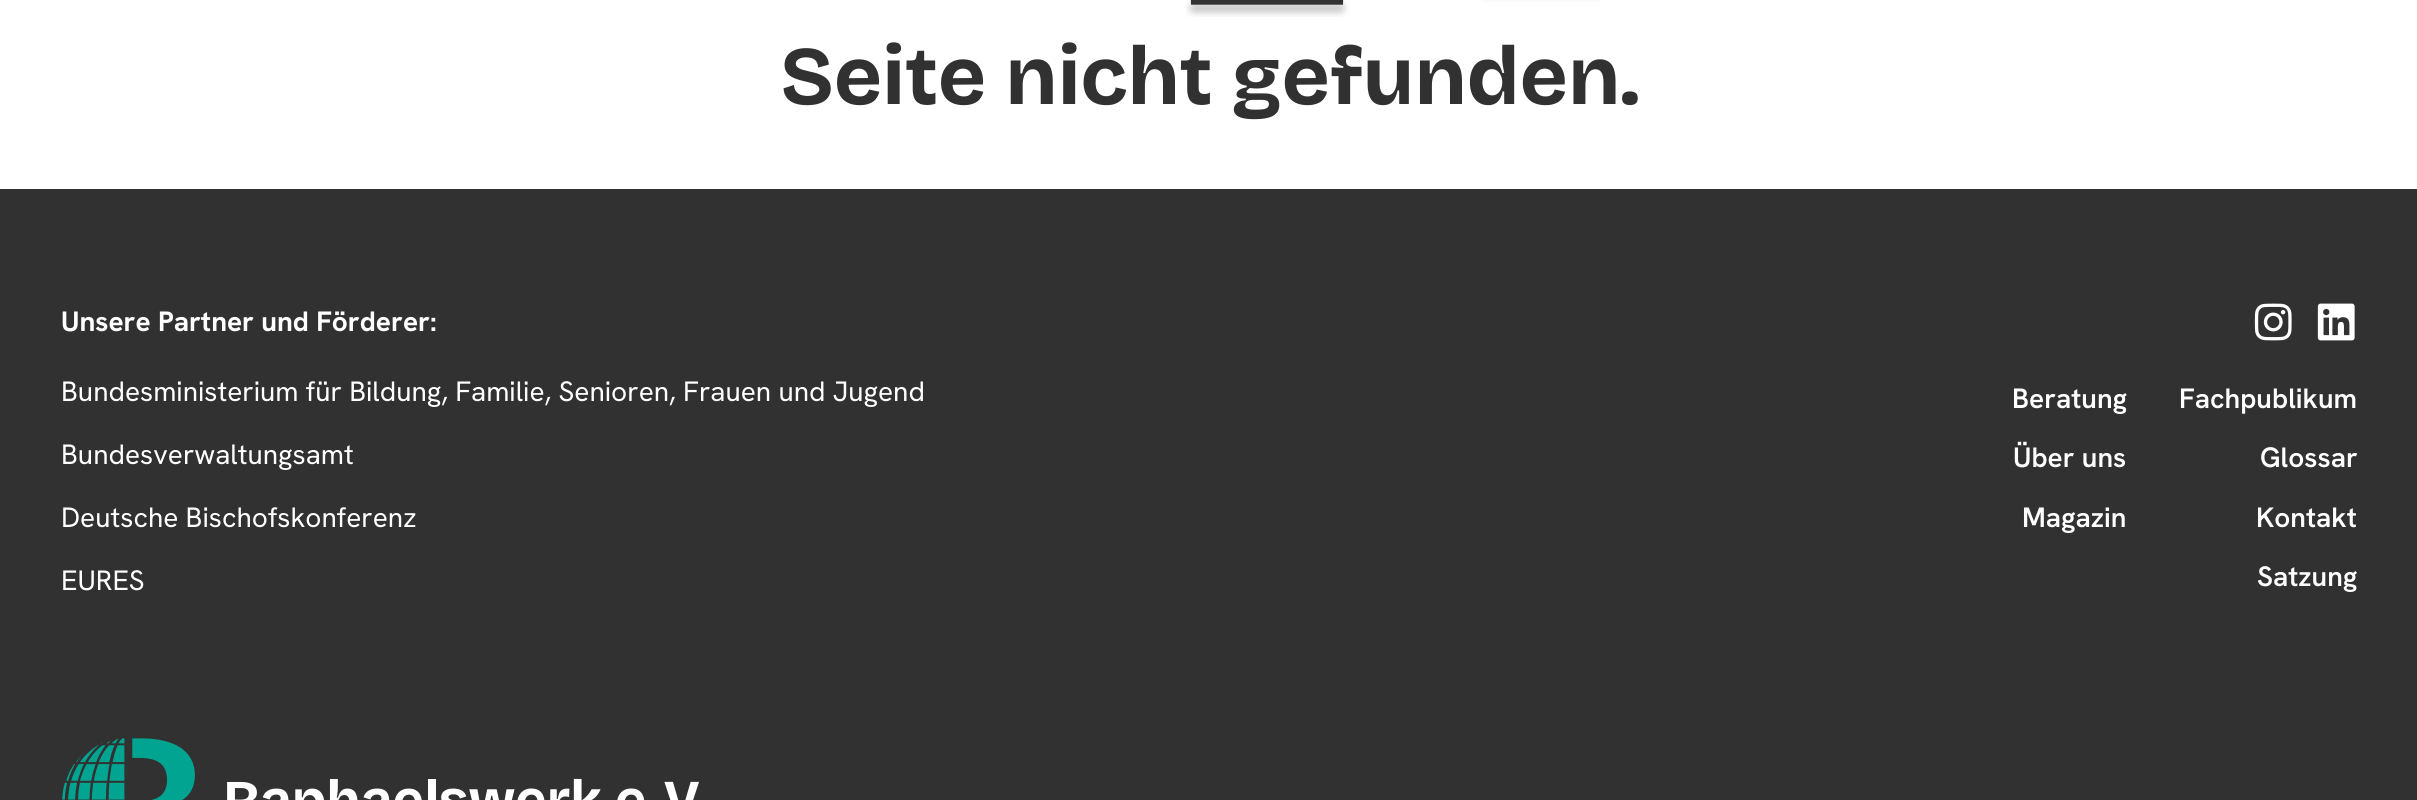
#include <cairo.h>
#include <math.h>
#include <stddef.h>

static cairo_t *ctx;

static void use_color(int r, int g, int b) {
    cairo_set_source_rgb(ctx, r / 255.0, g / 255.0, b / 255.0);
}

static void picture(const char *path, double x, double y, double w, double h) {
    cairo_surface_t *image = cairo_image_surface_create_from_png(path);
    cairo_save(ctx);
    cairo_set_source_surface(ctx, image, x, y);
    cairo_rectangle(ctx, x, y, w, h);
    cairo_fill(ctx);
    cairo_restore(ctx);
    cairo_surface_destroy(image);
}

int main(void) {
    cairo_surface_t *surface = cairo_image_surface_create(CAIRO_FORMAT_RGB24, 2417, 800);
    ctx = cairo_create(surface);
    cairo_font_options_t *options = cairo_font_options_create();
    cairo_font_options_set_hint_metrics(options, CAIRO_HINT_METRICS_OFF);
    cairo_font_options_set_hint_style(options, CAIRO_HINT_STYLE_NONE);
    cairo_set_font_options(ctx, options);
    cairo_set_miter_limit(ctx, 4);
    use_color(255, 255, 255);
    cairo_paint(ctx);
    picture("img1.png", 1186, 0, 414, 17);
    cairo_select_font_face(ctx, "Bricolage Grotesque", CAIRO_FONT_SLANT_NORMAL, CAIRO_FONT_WEIGHT_BOLD);
    cairo_set_font_size(ctx, 82.9);
    use_color(49, 49, 49);
    cairo_move_to(ctx, 780, 104);
    cairo_show_text(ctx, "Seite nicht gefunden.");
    cairo_rectangle(ctx, 0, 189, 2417, 611);
    cairo_fill(ctx);
    cairo_select_font_face(ctx, "Hanken Grotesk", CAIRO_FONT_SLANT_NORMAL, CAIRO_FONT_WEIGHT_BOLD);
    cairo_set_font_size(ctx, 28);
    use_color(255, 255, 255);
    cairo_move_to(ctx, 61, 331);
    cairo_show_text(ctx, "Unsere Partner und Förderer:");
    cairo_select_font_face(ctx, "Hanken Grotesk", CAIRO_FONT_SLANT_NORMAL, CAIRO_FONT_WEIGHT_NORMAL);
    cairo_move_to(ctx, 61, 401);
    cairo_show_text(ctx, "Bundesministerium für Bildung, Familie, Senioren, Frauen und Jugend");
    cairo_move_to(ctx, 61, 464);
    cairo_show_text(ctx, "Bundesverwaltungsamt");
    cairo_move_to(ctx, 61, 527);
    cairo_show_text(ctx, "Deutsche Bischofskonferenz");
    cairo_move_to(ctx, 61, 590);
    cairo_show_text(ctx, "EURES");
    picture("img2.png", 2254, 303, 38, 38);
    picture("img3.png", 2317, 303, 38, 38);
    cairo_select_font_face(ctx, "Hanken Grotesk SemiBold", CAIRO_FONT_SLANT_NORMAL, CAIRO_FONT_WEIGHT_NORMAL);
    cairo_move_to(ctx, 2012, 408);
    cairo_show_text(ctx, "Beratung");
    cairo_move_to(ctx, 2013, 467);
    cairo_show_text(ctx, "Über uns");
    cairo_move_to(ctx, 2022, 527);
    cairo_show_text(ctx, "Magazin");
    cairo_move_to(ctx, 2179, 408);
    cairo_show_text(ctx, "Fachpublikum");
    cairo_move_to(ctx, 2260, 467);
    cairo_show_text(ctx, "Glossar");
    cairo_move_to(ctx, 2256, 527);
    cairo_show_text(ctx, "Kontakt");
    cairo_move_to(ctx, 2257, 586);
    cairo_show_text(ctx, "Satzung");
    picture("img4.png", 62, 738, 637, 62);
    cairo_surface_write_to_png(surface, "result.png");
    cairo_font_options_destroy(options);
    cairo_destroy(ctx);
    cairo_surface_destroy(surface);
    return 0;
}
